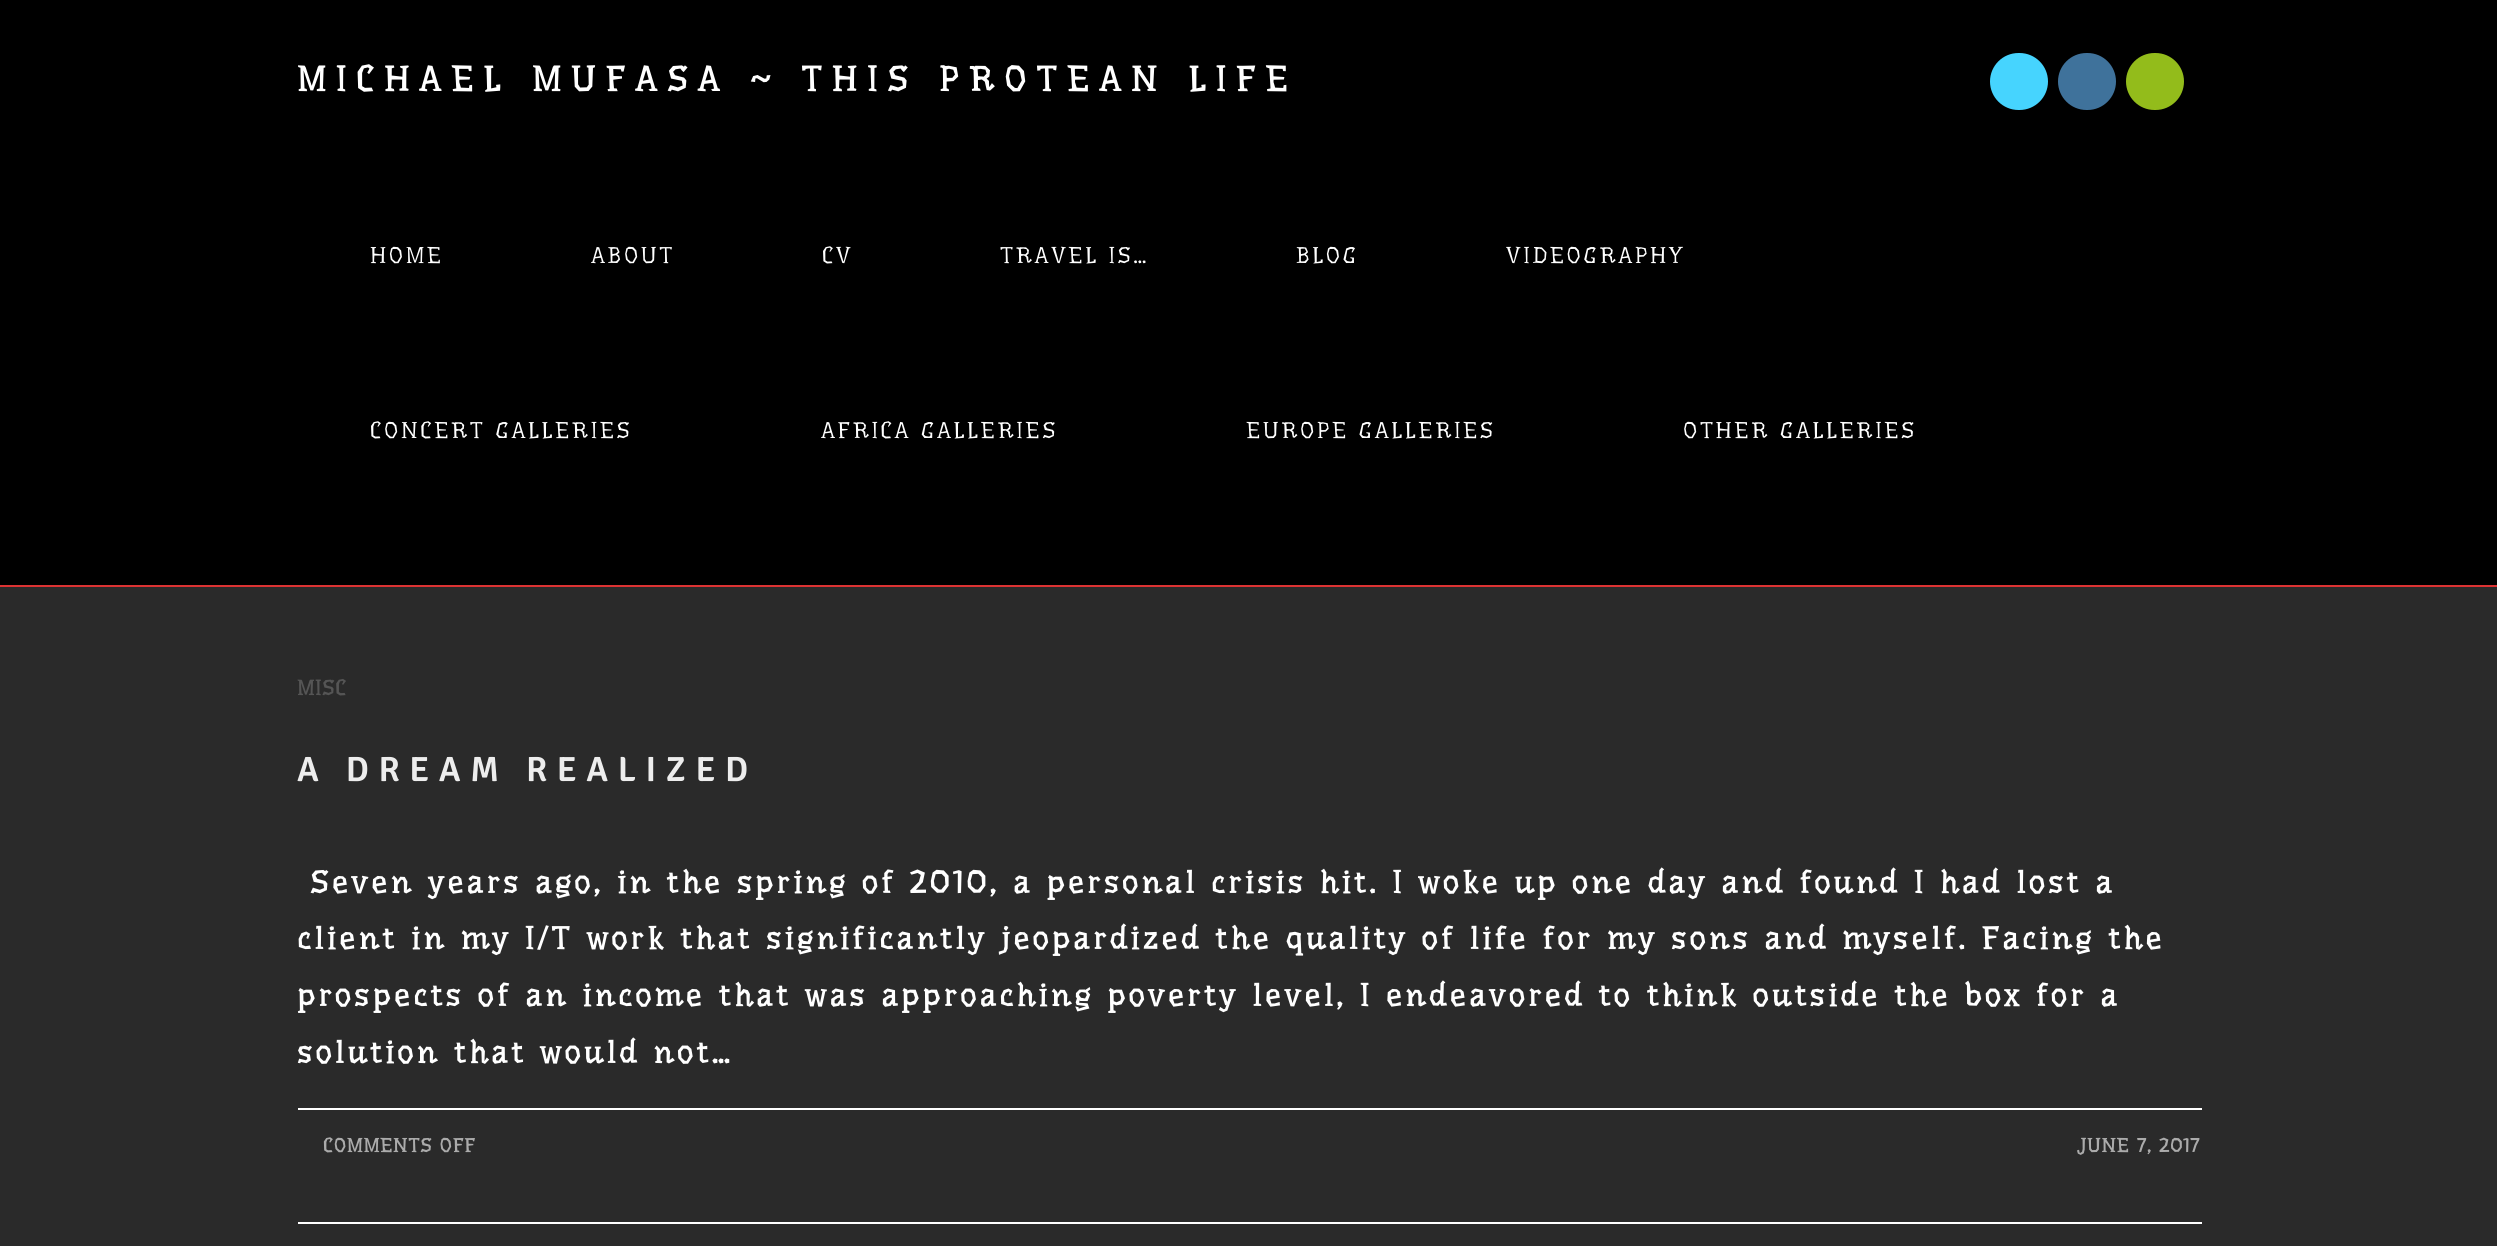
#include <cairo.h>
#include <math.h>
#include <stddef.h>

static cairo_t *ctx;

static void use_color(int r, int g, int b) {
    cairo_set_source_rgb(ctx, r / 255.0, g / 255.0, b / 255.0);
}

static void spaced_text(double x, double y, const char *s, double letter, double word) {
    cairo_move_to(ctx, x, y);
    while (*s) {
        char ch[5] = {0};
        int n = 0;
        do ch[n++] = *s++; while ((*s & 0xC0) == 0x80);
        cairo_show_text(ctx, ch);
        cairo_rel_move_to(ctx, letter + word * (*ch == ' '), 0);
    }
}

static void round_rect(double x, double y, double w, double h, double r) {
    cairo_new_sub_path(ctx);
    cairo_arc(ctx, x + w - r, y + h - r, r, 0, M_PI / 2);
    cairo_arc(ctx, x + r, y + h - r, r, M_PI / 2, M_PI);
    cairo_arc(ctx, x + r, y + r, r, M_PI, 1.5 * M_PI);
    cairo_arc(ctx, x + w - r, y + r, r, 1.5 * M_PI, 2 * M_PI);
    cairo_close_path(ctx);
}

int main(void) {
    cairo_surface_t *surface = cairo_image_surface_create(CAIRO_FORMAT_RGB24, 2497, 1246);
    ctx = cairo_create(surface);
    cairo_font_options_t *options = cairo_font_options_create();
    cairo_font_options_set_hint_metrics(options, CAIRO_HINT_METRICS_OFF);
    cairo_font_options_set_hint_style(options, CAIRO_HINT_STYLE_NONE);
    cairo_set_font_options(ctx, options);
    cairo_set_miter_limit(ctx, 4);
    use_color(42, 42, 42);
    cairo_paint(ctx);
    use_color(0, 0, 0);
    cairo_rectangle(ctx, 0, 0, 2497, 585);
    cairo_fill(ctx);
    use_color(221, 51, 51);
    cairo_rectangle(ctx, 0, 585, 2497, 2);
    cairo_fill(ctx);
    cairo_select_font_face(ctx, "Underdog", CAIRO_FONT_SLANT_NORMAL, CAIRO_FONT_WEIGHT_BOLD);
    cairo_set_font_size(ctx, 35);
    use_color(255, 255, 255);
    spaced_text(297, 91, "MICHAEL MUFASA ~ THIS PROTEAN LIFE", 10.35, 0);
    use_color(70, 212, 254);
    round_rect(1990, 53, 58, 57, 28.5);
    cairo_fill(ctx);
    use_color(63, 114, 155);
    round_rect(2058, 53, 58, 57, 28.5);
    cairo_fill(ctx);
    use_color(147, 188, 27);
    round_rect(2126, 53, 58, 57, 28.5);
    cairo_fill(ctx);
    cairo_select_font_face(ctx, "Underdog", CAIRO_FONT_SLANT_NORMAL, CAIRO_FONT_WEIGHT_NORMAL);
    cairo_set_font_size(ctx, 22.75);
    use_color(255, 255, 255);
    spaced_text(370, 263, "HOME", 2.6, 0);
    spaced_text(591, 263, "ABOUT", 2.6, 0);
    spaced_text(822, 263, "CV", 2.6, 0);
    spaced_text(1000, 263, "TRAVEL IS…", 2.6, 0);
    spaced_text(1296, 263, "BLOG", 2.6, 0);
    spaced_text(1506, 263, "VIDEOGRAPHY", 2.6, 0);
    spaced_text(370, 438, "CONCERT GALLERIES", 2.6, 0);
    spaced_text(821, 438, "AFRICA GALLERIES", 2.6, 0);
    spaced_text(1246, 438, "EUROPE GALLERIES", 2.6, 0);
    spaced_text(1683, 438, "OTHER GALLERIES", 2.6, 0);
    cairo_rectangle(ctx, 298, 1222, 1904, 2);
    cairo_fill(ctx);
    cairo_select_font_face(ctx, "Underdog", CAIRO_FONT_SLANT_NORMAL, CAIRO_FONT_WEIGHT_BOLD);
    cairo_set_font_size(ctx, 21);
    use_color(85, 85, 85);
    spaced_text(297, 695, "MISC", 1, 0);
    cairo_select_font_face(ctx, "Signika SemiBold", CAIRO_FONT_SLANT_NORMAL, CAIRO_FONT_WEIGHT_NORMAL);
    cairo_set_font_size(ctx, 35);
    use_color(237, 237, 237);
    spaced_text(297, 781, "A DREAM REALIZED", 9.6, 0);
    cairo_select_font_face(ctx, "Underdog", CAIRO_FONT_SLANT_NORMAL, CAIRO_FONT_WEIGHT_BOLD);
    cairo_set_font_size(ctx, 31.5);
    use_color(255, 255, 255);
    spaced_text(310, 893, "Seven years ago, in the spring of 2010, a personal crisis hit. I woke up one day and found I had lost a", 3.5, 0);
    spaced_text(297, 949, "client in my I/T work that significantly jeopardized the quality of life for my sons and myself. Facing the", 3.5, 0);
    spaced_text(297, 1006, "prospects of an income that was approaching poverty level, I endeavored to think outside the box for a", 3.5, 0);
    spaced_text(297, 1063, "solution that would not…", 3.5, 0);
    cairo_rectangle(ctx, 298, 1108, 1904, 2);
    cairo_fill(ctx);
    cairo_set_font_size(ctx, 19.25);
    use_color(171, 171, 171);
    spaced_text(323, 1152, "COMMENTS OFF", 1, 0);
    spaced_text(2077, 1152, "JUNE 7, 2017", 1, 0);
    cairo_surface_write_to_png(surface, "result.png");
    cairo_font_options_destroy(options);
    cairo_destroy(ctx);
    cairo_surface_destroy(surface);
    return 0;
}
